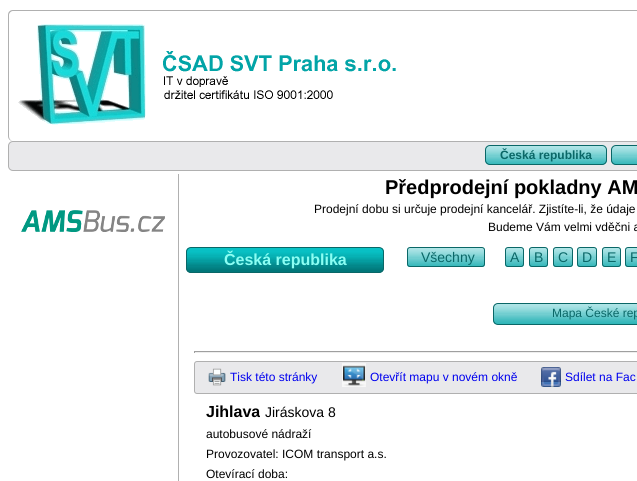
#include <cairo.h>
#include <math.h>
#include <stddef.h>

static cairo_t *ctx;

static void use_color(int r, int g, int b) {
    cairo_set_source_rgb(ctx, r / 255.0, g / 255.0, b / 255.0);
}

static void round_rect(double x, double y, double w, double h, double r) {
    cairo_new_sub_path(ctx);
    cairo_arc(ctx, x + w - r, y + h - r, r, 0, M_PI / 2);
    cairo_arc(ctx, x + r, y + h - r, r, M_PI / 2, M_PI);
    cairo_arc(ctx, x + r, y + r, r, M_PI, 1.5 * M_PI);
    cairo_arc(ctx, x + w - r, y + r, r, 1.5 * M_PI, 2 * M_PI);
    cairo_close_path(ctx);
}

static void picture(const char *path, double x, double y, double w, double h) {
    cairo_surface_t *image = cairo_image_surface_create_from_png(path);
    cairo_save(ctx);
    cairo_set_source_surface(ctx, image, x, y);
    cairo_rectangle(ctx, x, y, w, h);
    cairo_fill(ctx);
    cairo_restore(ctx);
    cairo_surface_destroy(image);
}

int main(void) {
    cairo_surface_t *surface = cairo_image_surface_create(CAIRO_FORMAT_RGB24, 637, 481);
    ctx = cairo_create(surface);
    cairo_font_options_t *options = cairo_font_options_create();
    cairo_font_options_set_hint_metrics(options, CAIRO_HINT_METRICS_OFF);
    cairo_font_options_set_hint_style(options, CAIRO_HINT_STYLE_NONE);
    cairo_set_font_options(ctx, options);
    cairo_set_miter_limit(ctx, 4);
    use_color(255, 255, 255);
    cairo_paint(ctx);
    use_color(176, 176, 176);
    cairo_set_fill_rule(ctx, CAIRO_FILL_RULE_EVEN_ODD);
    cairo_new_path(ctx);
    cairo_move_to(ctx, 13, 10);
    cairo_line_to(ctx, 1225, 10);
    cairo_curve_to(ctx, 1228, 10, 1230, 12, 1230, 15);
    cairo_line_to(ctx, 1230, 136);
    cairo_curve_to(ctx, 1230, 139, 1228, 141, 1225, 141);
    cairo_line_to(ctx, 13, 141);
    cairo_curve_to(ctx, 10, 141, 8, 139, 8, 136);
    cairo_line_to(ctx, 8, 15);
    cairo_curve_to(ctx, 8, 12, 10, 10, 13, 10);
    cairo_close_path(ctx);
    cairo_move_to(ctx, 13, 11);
    cairo_line_to(ctx, 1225, 11);
    cairo_curve_to(ctx, 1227, 11, 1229, 13, 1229, 15);
    cairo_line_to(ctx, 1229, 136);
    cairo_curve_to(ctx, 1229, 139, 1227, 141, 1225, 141);
    cairo_line_to(ctx, 13, 141);
    cairo_curve_to(ctx, 11, 141, 9, 139, 9, 136);
    cairo_line_to(ctx, 9, 15);
    cairo_curve_to(ctx, 9, 13, 11, 11, 13, 11);
    cairo_close_path(ctx);
    cairo_fill(ctx);
    picture("img1.png", 18, 24, 128, 101);
    picture("img2.png", 163, 51, 233, 48);
    use_color(233, 233, 235);
    round_rect(8.5, 141.5, 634, 29, 4.5);
    cairo_fill_preserve(ctx);
    use_color(176, 176, 176);
    cairo_set_line_width(ctx, 1);
    cairo_stroke(ctx);
    picture("img3.png", 485, 146, 122, 19);
    round_rect(485.5, 145.5, 121, 19, 4.5);
    use_color(10, 103, 103);
    cairo_stroke(ctx);
    cairo_select_font_face(ctx, "Liberation Sans", CAIRO_FONT_SLANT_NORMAL, CAIRO_FONT_WEIGHT_BOLD);
    cairo_set_font_size(ctx, 12);
    cairo_move_to(ctx, 500, 159);
    cairo_show_text(ctx, "Česká republika");
    picture("img4.png", 611, 146, 26, 19);
    round_rect(611.5, 145.5, 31, 19, 4.5);
    cairo_stroke(ctx);
    picture("img5.png", 21, 210, 144, 22);
    use_color(176, 176, 176);
    cairo_rectangle(ctx, 178, 174, 1, 307);
    cairo_fill(ctx);
    cairo_set_font_size(ctx, 20);
    use_color(0, 0, 0);
    cairo_move_to(ctx, 385, 194);
    cairo_show_text(ctx, "Předprodejní pokladny AM");
    cairo_select_font_face(ctx, "Liberation Sans", CAIRO_FONT_SLANT_NORMAL, CAIRO_FONT_WEIGHT_NORMAL);
    cairo_set_font_size(ctx, 12);
    cairo_move_to(ctx, 314, 213);
    cairo_show_text(ctx, "Prodejní dobu si určuje prodejní kancelář. Zjistíte-li, že údaje");
    cairo_move_to(ctx, 488, 231);
    cairo_show_text(ctx, "Budeme Vám velmi vděčni a");
    picture("img6.png", 186, 248, 198, 25);
    round_rect(186.5, 247.5, 197, 25, 4.5);
    use_color(10, 103, 103);
    cairo_stroke(ctx);
    cairo_select_font_face(ctx, "Liberation Sans", CAIRO_FONT_SLANT_NORMAL, CAIRO_FONT_WEIGHT_BOLD);
    cairo_set_font_size(ctx, 16);
    use_color(139, 254, 243);
    cairo_move_to(ctx, 224, 265);
    cairo_show_text(ctx, "Česká republika");
    picture("img7.png", 407, 248, 78, 19);
    round_rect(407.5, 247.5, 77, 19, 2.5);
    use_color(10, 103, 103);
    cairo_stroke(ctx);
    picture("img8.png", 417, 248, 58, 18);
    cairo_select_font_face(ctx, "Liberation Sans", CAIRO_FONT_SLANT_NORMAL, CAIRO_FONT_WEIGHT_NORMAL);
    cairo_set_font_size(ctx, 14);
    cairo_move_to(ctx, 421, 262);
    cairo_show_text(ctx, "Všechny");
    picture("img9.png", 505, 248, 19, 19);
    picture("img9.png", 529, 248, 19, 19);
    picture("img10.png", 553, 248, 20, 19);
    picture("img10.png", 577, 248, 20, 19);
    picture("img9.png", 602, 248, 19, 19);
    picture("img11.png", 625, 248, 12, 19);
    round_rect(505.5, 247.5, 18, 19, 2.5);
    cairo_stroke(ctx);
    cairo_move_to(ctx, 510, 262);
    cairo_show_text(ctx, "A");
    round_rect(529.5, 247.5, 18, 19, 2.5);
    cairo_stroke(ctx);
    cairo_move_to(ctx, 534, 262);
    cairo_show_text(ctx, "B");
    round_rect(553.5, 247.5, 19, 19, 2.5);
    cairo_stroke(ctx);
    cairo_move_to(ctx, 558, 262);
    cairo_show_text(ctx, "C");
    round_rect(577.5, 247.5, 19, 19, 2.5);
    cairo_stroke(ctx);
    cairo_move_to(ctx, 582, 262);
    cairo_show_text(ctx, "D");
    round_rect(602.5, 247.5, 18, 19, 2.5);
    cairo_stroke(ctx);
    cairo_move_to(ctx, 607, 262);
    cairo_show_text(ctx, "E");
    round_rect(625.5, 247.5, 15, 19, 2.5);
    cairo_stroke(ctx);
    cairo_move_to(ctx, 630, 262);
    cairo_show_text(ctx, "F");
    picture("img12.png", 493, 304, 144, 20);
    round_rect(493.5, 303.5, 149, 21, 4.5);
    cairo_stroke(ctx);
    cairo_set_font_size(ctx, 12);
    cairo_move_to(ctx, 552, 317);
    cairo_show_text(ctx, "Mapa České rep");
    use_color(159, 159, 159);
    cairo_rectangle(ctx, 194, 351, 443, 1);
    cairo_fill(ctx);
    use_color(238, 238, 238);
    cairo_rectangle(ctx, 194, 352, 443, 1);
    cairo_fill(ctx);
    use_color(159, 159, 159);
    cairo_rectangle(ctx, 194, 351, 1, 2);
    cairo_fill(ctx);
    use_color(233, 233, 235);
    round_rect(194.5, 361.5, 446, 32, 2.5);
    cairo_fill_preserve(ctx);
    use_color(176, 176, 176);
    cairo_stroke(ctx);
    picture("img13.png", 208, 368, 18, 18);
    use_color(0, 0, 238);
    cairo_move_to(ctx, 230, 381);
    cairo_show_text(ctx, "Tisk této stránky");
    picture("img14.png", 342, 363, 24, 24);
    cairo_move_to(ctx, 370, 381);
    cairo_show_text(ctx, "Otevřít mapu v novém okně");
    picture("img15.png", 541, 367, 20, 20);
    cairo_move_to(ctx, 565, 381);
    cairo_show_text(ctx, "Sdílet na Fac");
    cairo_select_font_face(ctx, "Liberation Sans", CAIRO_FONT_SLANT_NORMAL, CAIRO_FONT_WEIGHT_BOLD);
    cairo_set_font_size(ctx, 16);
    use_color(0, 0, 0);
    cairo_move_to(ctx, 206, 417);
    cairo_show_text(ctx, "Jihlava");
    cairo_select_font_face(ctx, "Liberation Sans", CAIRO_FONT_SLANT_NORMAL, CAIRO_FONT_WEIGHT_NORMAL);
    cairo_set_font_size(ctx, 14);
    cairo_move_to(ctx, 265, 417);
    cairo_show_text(ctx, "Jiráskova 8");
    cairo_set_font_size(ctx, 12);
    cairo_move_to(ctx, 206, 438);
    cairo_show_text(ctx, "autobusové nádraží");
    cairo_move_to(ctx, 206, 458);
    cairo_show_text(ctx, "Provozovatel: ICOM transport a.s.");
    cairo_move_to(ctx, 206, 478);
    cairo_show_text(ctx, "Otevírací doba:");
    cairo_surface_write_to_png(surface, "result.png");
    cairo_font_options_destroy(options);
    cairo_destroy(ctx);
    cairo_surface_destroy(surface);
    return 0;
}
